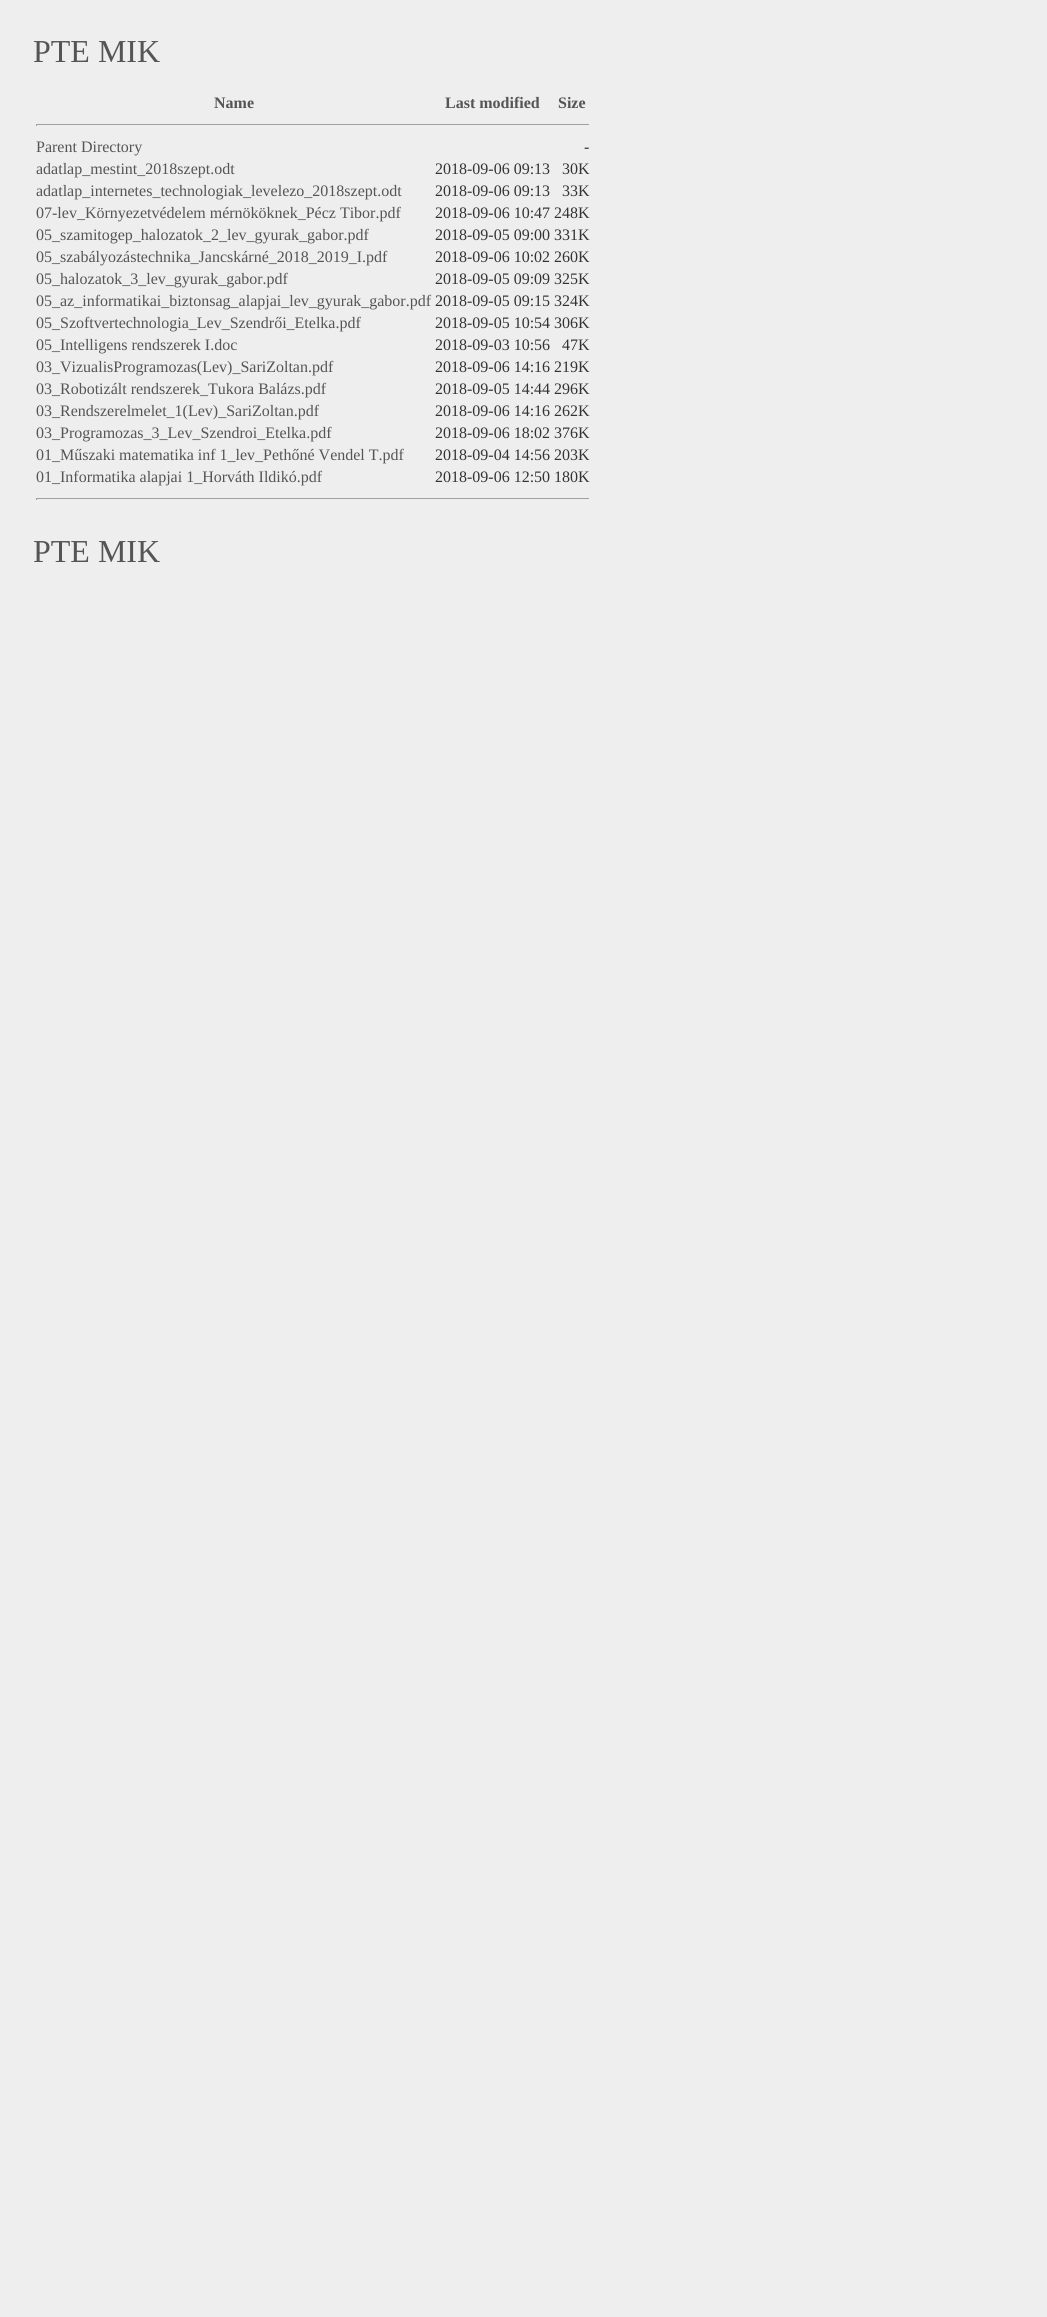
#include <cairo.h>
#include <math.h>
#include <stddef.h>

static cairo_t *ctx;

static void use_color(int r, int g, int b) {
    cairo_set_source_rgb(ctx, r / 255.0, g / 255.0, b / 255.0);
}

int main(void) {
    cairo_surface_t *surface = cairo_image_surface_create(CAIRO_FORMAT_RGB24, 1047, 2317);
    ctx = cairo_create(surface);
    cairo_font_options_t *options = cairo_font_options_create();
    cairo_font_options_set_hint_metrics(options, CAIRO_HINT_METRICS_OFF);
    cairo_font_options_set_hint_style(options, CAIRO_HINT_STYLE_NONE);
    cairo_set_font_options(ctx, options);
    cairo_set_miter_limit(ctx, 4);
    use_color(238, 238, 238);
    cairo_paint(ctx);
    cairo_select_font_face(ctx, "Liberation Serif", CAIRO_FONT_SLANT_NORMAL, CAIRO_FONT_WEIGHT_NORMAL);
    cairo_set_font_size(ctx, 32);
    use_color(85, 85, 85);
    cairo_move_to(ctx, 33, 62);
    cairo_show_text(ctx, "PTE MIK");
    cairo_select_font_face(ctx, "Liberation Serif", CAIRO_FONT_SLANT_NORMAL, CAIRO_FONT_WEIGHT_BOLD);
    cairo_set_font_size(ctx, 16);
    cairo_move_to(ctx, 214, 108);
    cairo_show_text(ctx, "Name");
    cairo_move_to(ctx, 445, 108);
    cairo_show_text(ctx, "Last modified");
    cairo_move_to(ctx, 558, 108);
    cairo_show_text(ctx, "Size");
    use_color(159, 159, 159);
    cairo_rectangle(ctx, 36, 124, 554, 1);
    cairo_fill(ctx);
    use_color(238, 238, 238);
    cairo_rectangle(ctx, 589, 124, 1, 2);
    cairo_fill(ctx);
    use_color(159, 159, 159);
    cairo_rectangle(ctx, 36, 124, 1, 2);
    cairo_fill(ctx);
    cairo_select_font_face(ctx, "Liberation Serif", CAIRO_FONT_SLANT_NORMAL, CAIRO_FONT_WEIGHT_NORMAL);
    use_color(85, 85, 85);
    cairo_move_to(ctx, 36, 152);
    cairo_show_text(ctx, "Parent Directory");
    use_color(51, 51, 51);
    cairo_move_to(ctx, 584, 152);
    cairo_show_text(ctx, "-");
    use_color(85, 85, 85);
    cairo_move_to(ctx, 36, 174);
    cairo_show_text(ctx, "adatlap_mestint_2018szept.odt");
    use_color(51, 51, 51);
    cairo_move_to(ctx, 435, 174);
    cairo_show_text(ctx, "2018-09-06 09:13");
    cairo_move_to(ctx, 562, 174);
    cairo_show_text(ctx, "30K");
    use_color(85, 85, 85);
    cairo_move_to(ctx, 36, 196);
    cairo_show_text(ctx, "adatlap_internetes_technologiak_levelezo_2018szept.odt");
    use_color(51, 51, 51);
    cairo_move_to(ctx, 435, 196);
    cairo_show_text(ctx, "2018-09-06 09:13");
    cairo_move_to(ctx, 562, 196);
    cairo_show_text(ctx, "33K");
    use_color(85, 85, 85);
    cairo_move_to(ctx, 36, 218);
    cairo_show_text(ctx, "07-lev_Környezetvédelem mérnököknek_Pécz Tibor.pdf");
    use_color(51, 51, 51);
    cairo_move_to(ctx, 435, 218);
    cairo_show_text(ctx, "2018-09-06 10:47 248K");
    use_color(85, 85, 85);
    cairo_move_to(ctx, 36, 240);
    cairo_show_text(ctx, "05_szamitogep_halozatok_2_lev_gyurak_gabor.pdf");
    use_color(51, 51, 51);
    cairo_move_to(ctx, 435, 240);
    cairo_show_text(ctx, "2018-09-05 09:00 331K");
    use_color(85, 85, 85);
    cairo_move_to(ctx, 36, 262);
    cairo_show_text(ctx, "05_szabályozástechnika_Jancskárné_2018_2019_I.pdf");
    use_color(51, 51, 51);
    cairo_move_to(ctx, 435, 262);
    cairo_show_text(ctx, "2018-09-06 10:02 260K");
    use_color(85, 85, 85);
    cairo_move_to(ctx, 36, 284);
    cairo_show_text(ctx, "05_halozatok_3_lev_gyurak_gabor.pdf");
    use_color(51, 51, 51);
    cairo_move_to(ctx, 435, 284);
    cairo_show_text(ctx, "2018-09-05 09:09 325K");
    use_color(85, 85, 85);
    cairo_move_to(ctx, 36, 306);
    cairo_show_text(ctx, "05_az_informatikai_biztonsag_alapjai_lev_gyurak_gabor.pdf");
    use_color(51, 51, 51);
    cairo_move_to(ctx, 435, 306);
    cairo_show_text(ctx, "2018-09-05 09:15 324K");
    use_color(85, 85, 85);
    cairo_move_to(ctx, 36, 328);
    cairo_show_text(ctx, "05_Szoftvertechnologia_Lev_Szendrői_Etelka.pdf");
    use_color(51, 51, 51);
    cairo_move_to(ctx, 435, 328);
    cairo_show_text(ctx, "2018-09-05 10:54 306K");
    use_color(85, 85, 85);
    cairo_move_to(ctx, 36, 350);
    cairo_show_text(ctx, "05_Intelligens rendszerek I.doc");
    use_color(51, 51, 51);
    cairo_move_to(ctx, 435, 350);
    cairo_show_text(ctx, "2018-09-03 10:56");
    cairo_move_to(ctx, 562, 350);
    cairo_show_text(ctx, "47K");
    use_color(85, 85, 85);
    cairo_move_to(ctx, 36, 372);
    cairo_show_text(ctx, "03_VizualisProgramozas(Lev)_SariZoltan.pdf");
    use_color(51, 51, 51);
    cairo_move_to(ctx, 435, 372);
    cairo_show_text(ctx, "2018-09-06 14:16 219K");
    use_color(85, 85, 85);
    cairo_move_to(ctx, 36, 394);
    cairo_show_text(ctx, "03_Robotizált rendszerek_Tukora Balázs.pdf");
    use_color(51, 51, 51);
    cairo_move_to(ctx, 435, 394);
    cairo_show_text(ctx, "2018-09-05 14:44 296K");
    use_color(85, 85, 85);
    cairo_move_to(ctx, 36, 416);
    cairo_show_text(ctx, "03_Rendszerelmelet_1(Lev)_SariZoltan.pdf");
    use_color(51, 51, 51);
    cairo_move_to(ctx, 435, 416);
    cairo_show_text(ctx, "2018-09-06 14:16 262K");
    use_color(85, 85, 85);
    cairo_move_to(ctx, 36, 438);
    cairo_show_text(ctx, "03_Programozas_3_Lev_Szendroi_Etelka.pdf");
    use_color(51, 51, 51);
    cairo_move_to(ctx, 435, 438);
    cairo_show_text(ctx, "2018-09-06 18:02 376K");
    use_color(85, 85, 85);
    cairo_move_to(ctx, 36, 460);
    cairo_show_text(ctx, "01_Műszaki matematika inf 1_lev_Pethőné Vendel T.pdf");
    use_color(51, 51, 51);
    cairo_move_to(ctx, 435, 460);
    cairo_show_text(ctx, "2018-09-04 14:56 203K");
    use_color(85, 85, 85);
    cairo_move_to(ctx, 36, 482);
    cairo_show_text(ctx, "01_Informatika alapjai 1_Horváth Ildikó.pdf");
    use_color(51, 51, 51);
    cairo_move_to(ctx, 435, 482);
    cairo_show_text(ctx, "2018-09-06 12:50 180K");
    use_color(159, 159, 159);
    cairo_rectangle(ctx, 36, 498, 554, 1);
    cairo_fill(ctx);
    use_color(238, 238, 238);
    cairo_rectangle(ctx, 589, 498, 1, 2);
    cairo_fill(ctx);
    use_color(159, 159, 159);
    cairo_rectangle(ctx, 36, 498, 1, 2);
    cairo_fill(ctx);
    cairo_set_font_size(ctx, 32);
    use_color(85, 85, 85);
    cairo_move_to(ctx, 33, 562);
    cairo_show_text(ctx, "PTE MIK");
    cairo_surface_write_to_png(surface, "result.png");
    cairo_font_options_destroy(options);
    cairo_destroy(ctx);
    cairo_surface_destroy(surface);
    return 0;
}
